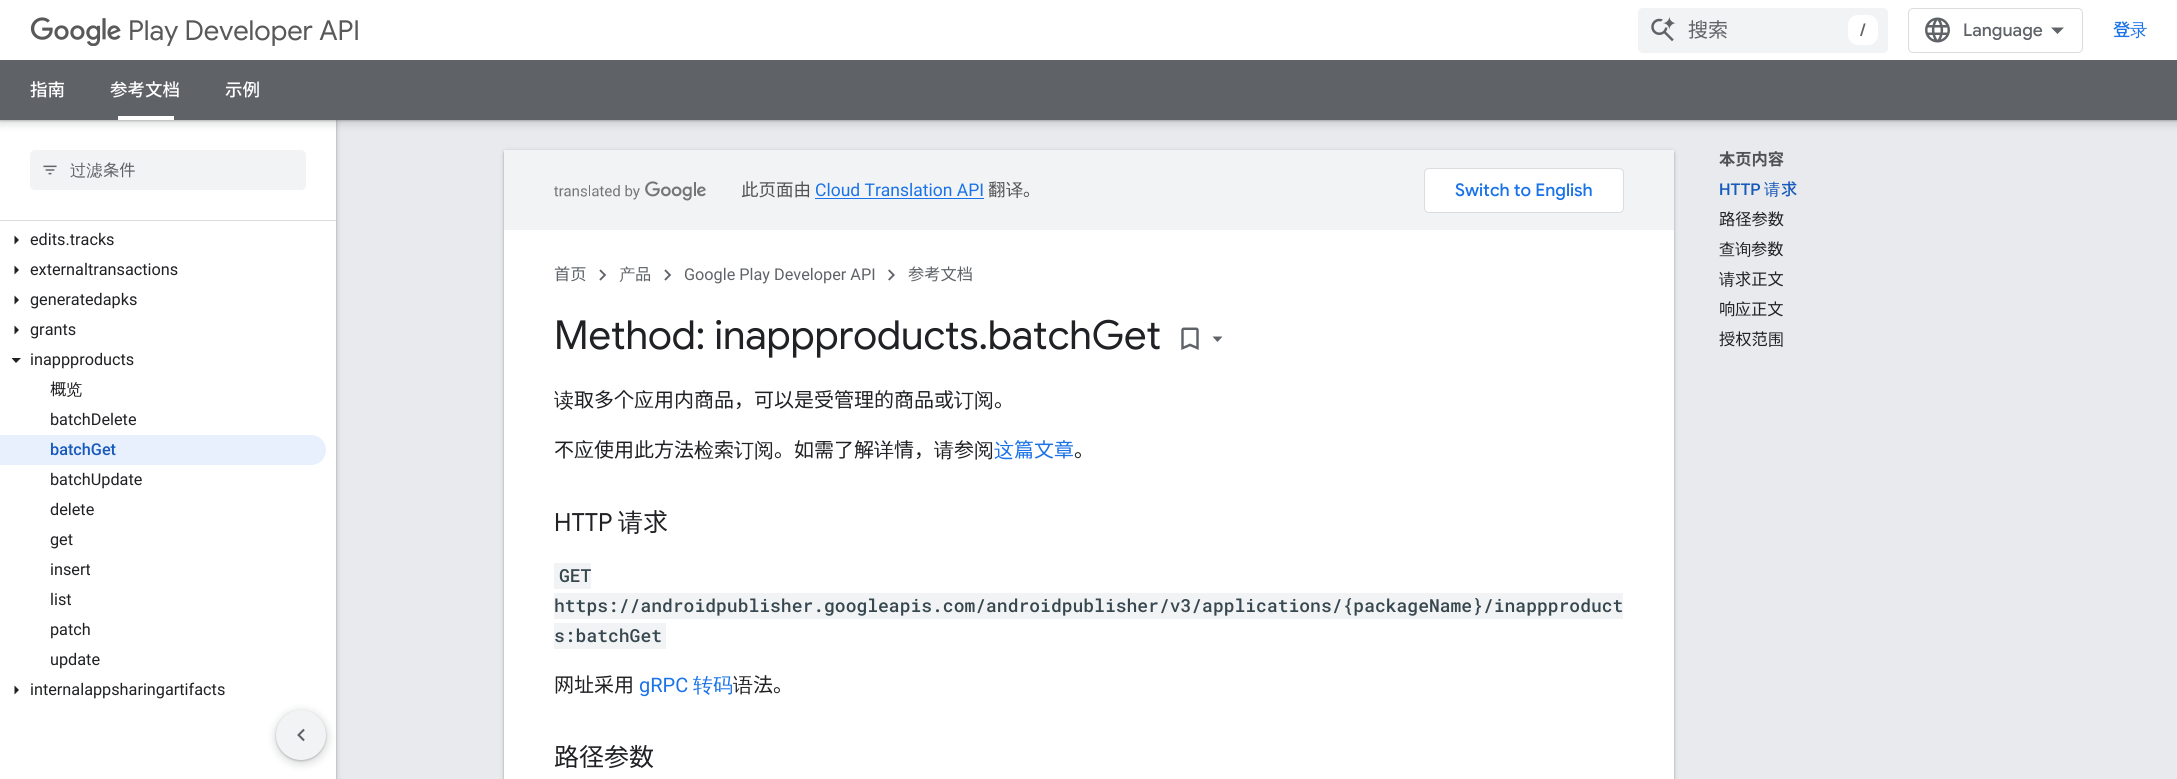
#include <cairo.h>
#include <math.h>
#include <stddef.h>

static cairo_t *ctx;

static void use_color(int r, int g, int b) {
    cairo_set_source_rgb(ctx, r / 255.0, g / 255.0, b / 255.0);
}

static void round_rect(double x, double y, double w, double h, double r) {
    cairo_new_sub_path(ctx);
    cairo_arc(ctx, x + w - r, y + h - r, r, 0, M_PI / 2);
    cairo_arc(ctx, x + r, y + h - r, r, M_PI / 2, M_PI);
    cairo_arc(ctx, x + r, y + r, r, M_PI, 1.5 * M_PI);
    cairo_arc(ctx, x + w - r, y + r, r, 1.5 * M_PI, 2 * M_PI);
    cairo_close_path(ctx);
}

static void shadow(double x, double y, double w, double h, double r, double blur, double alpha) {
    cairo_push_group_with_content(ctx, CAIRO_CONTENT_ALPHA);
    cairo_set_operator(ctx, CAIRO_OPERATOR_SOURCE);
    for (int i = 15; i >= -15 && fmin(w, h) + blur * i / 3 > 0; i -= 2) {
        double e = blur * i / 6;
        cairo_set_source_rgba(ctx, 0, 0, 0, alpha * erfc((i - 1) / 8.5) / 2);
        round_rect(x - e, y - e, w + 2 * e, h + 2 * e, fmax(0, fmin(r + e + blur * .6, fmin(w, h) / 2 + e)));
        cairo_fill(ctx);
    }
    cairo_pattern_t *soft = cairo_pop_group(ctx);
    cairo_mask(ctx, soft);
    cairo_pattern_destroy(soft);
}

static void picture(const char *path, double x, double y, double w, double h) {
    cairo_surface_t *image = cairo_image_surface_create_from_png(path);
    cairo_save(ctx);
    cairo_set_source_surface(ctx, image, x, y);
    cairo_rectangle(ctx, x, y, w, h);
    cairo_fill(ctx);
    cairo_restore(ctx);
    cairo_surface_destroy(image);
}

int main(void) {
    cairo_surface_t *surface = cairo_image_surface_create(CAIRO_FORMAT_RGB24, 2177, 779);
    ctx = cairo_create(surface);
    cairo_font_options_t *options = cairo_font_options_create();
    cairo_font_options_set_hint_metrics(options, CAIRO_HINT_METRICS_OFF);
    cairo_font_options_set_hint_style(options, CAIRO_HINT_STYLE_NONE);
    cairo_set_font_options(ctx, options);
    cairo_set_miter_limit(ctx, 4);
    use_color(232, 234, 237);
    cairo_paint(ctx);
    use_color(60, 64, 67);
    shadow(-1, 0, 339, 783, 0, 2, 0.15);
    shadow(0, 1, 336, 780, 0, 1, 0.3);
    use_color(255, 255, 255);
    cairo_rectangle(ctx, 0, 221, 336, 558);
    cairo_fill(ctx);
    cairo_rectangle(ctx, 0, 120, 336, 100);
    cairo_fill(ctx);
    use_color(60, 64, 67);
    shadow(-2, 60, 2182, 65, 0, 4, 0.15);
    shadow(0, 61, 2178, 60, 0, 1, 0.3);
    use_color(255, 255, 255);
    cairo_rectangle(ctx, 0, 0, 2177, 60);
    cairo_fill(ctx);
    picture("img1.png", 30, 17, 91, 29);
    cairo_select_font_face(ctx, "Google Sans", CAIRO_FONT_SLANT_NORMAL, CAIRO_FONT_WEIGHT_NORMAL);
    cairo_set_font_size(ctx, 27.5);
    use_color(89, 89, 89);
    cairo_move_to(ctx, 128, 40);
    cairo_show_text(ctx, "Play Developer API");
    use_color(241, 243, 244);
    round_rect(1638, 8, 250, 45, 5);
    cairo_fill(ctx);
    picture("img2.png", 1651, 16, 25, 26);
    cairo_select_font_face(ctx, "Noto Sans JP", CAIRO_FONT_SLANT_NORMAL, CAIRO_FONT_WEIGHT_NORMAL);
    cairo_set_font_size(ctx, 20);
    use_color(95, 99, 104);
    cairo_move_to(ctx, 1688, 37);
    cairo_show_text(ctx, "搜索");
    use_color(255, 255, 255);
    round_rect(1848, 15, 30, 30, 10);
    cairo_fill(ctx);
    cairo_select_font_face(ctx, "Google Sans Medium", CAIRO_FONT_SLANT_NORMAL, CAIRO_FONT_WEIGHT_NORMAL);
    cairo_set_font_size(ctx, 17.5);
    use_color(95, 99, 104);
    cairo_move_to(ctx, 1860, 36);
    cairo_show_text(ctx, "/");
    round_rect(1908.5, 8.5, 174, 44, 4.5);
    use_color(218, 220, 224);
    cairo_set_line_width(ctx, 1);
    cairo_stroke(ctx);
    picture("img3.png", 1925, 17, 25, 26);
    use_color(95, 99, 104);
    cairo_move_to(ctx, 1963, 36);
    cairo_show_text(ctx, "Language");
    cairo_new_path(ctx);
    cairo_move_to(ctx, 2057.5, 34);
    cairo_line_to(ctx, 2051, 27.5);
    cairo_line_to(ctx, 2064, 27.5);
    cairo_close_path(ctx);
    cairo_fill(ctx);
    cairo_select_font_face(ctx, "Noto Sans JP Medium", CAIRO_FONT_SLANT_NORMAL, CAIRO_FONT_WEIGHT_NORMAL);
    use_color(26, 115, 232);
    cairo_move_to(ctx, 2113, 36);
    cairo_show_text(ctx, "登");
    cairo_select_font_face(ctx, "WenQuanYi Zen Hei Medium", CAIRO_FONT_SLANT_NORMAL, CAIRO_FONT_WEIGHT_NORMAL);
    cairo_move_to(ctx, 2130, 36);
    cairo_show_text(ctx, "录");
    use_color(95, 99, 104);
    cairo_rectangle(ctx, 0, 60, 2177, 60);
    cairo_fill(ctx);
    cairo_select_font_face(ctx, "Noto Sans JP Medium", CAIRO_FONT_SLANT_NORMAL, CAIRO_FONT_WEIGHT_NORMAL);
    use_color(255, 255, 255);
    cairo_move_to(ctx, 30, 96);
    cairo_show_text(ctx, "指南");
    cairo_move_to(ctx, 110, 96);
    cairo_show_text(ctx, "参考文档");
    cairo_rectangle(ctx, 118, 116, 56, 4);
    cairo_fill(ctx);
    cairo_move_to(ctx, 225, 96);
    cairo_show_text(ctx, "示例");
    use_color(218, 220, 224);
    cairo_rectangle(ctx, 0, 220, 336, 1);
    cairo_fill(ctx);
    use_color(241, 243, 244);
    round_rect(30, 150, 276, 40, 5);
    cairo_fill(ctx);
    picture("img4.png", 43, 165, 14, 10);
    cairo_select_font_face(ctx, "WenQuanYi Zen Hei Medium", CAIRO_FONT_SLANT_NORMAL, CAIRO_FONT_WEIGHT_NORMAL);
    cairo_set_font_size(ctx, 16.25);
    use_color(95, 99, 104);
    cairo_move_to(ctx, 70, 176);
    cairo_show_text(ctx, "过滤");
    cairo_select_font_face(ctx, "Noto Sans JP", CAIRO_FONT_SLANT_NORMAL, CAIRO_FONT_WEIGHT_NORMAL);
    cairo_move_to(ctx, 103, 176);
    cairo_show_text(ctx, "条件");
    use_color(32, 33, 36);
    cairo_new_path(ctx);
    cairo_move_to(ctx, 14.5, 244.5);
    cairo_line_to(ctx, 14.5, 235.5);
    cairo_line_to(ctx, 19, 240);
    cairo_close_path(ctx);
    cairo_fill(ctx);
    cairo_select_font_face(ctx, "Roboto", CAIRO_FONT_SLANT_NORMAL, CAIRO_FONT_WEIGHT_NORMAL);
    cairo_move_to(ctx, 30, 245);
    cairo_show_text(ctx, "edits.tracks");
    cairo_new_path(ctx);
    cairo_move_to(ctx, 14.5, 274.5);
    cairo_line_to(ctx, 14.5, 265.5);
    cairo_line_to(ctx, 19, 270);
    cairo_close_path(ctx);
    cairo_fill(ctx);
    cairo_move_to(ctx, 30, 275);
    cairo_show_text(ctx, "externaltransactions");
    cairo_new_path(ctx);
    cairo_move_to(ctx, 14.5, 304.5);
    cairo_line_to(ctx, 14.5, 295.5);
    cairo_line_to(ctx, 19, 300);
    cairo_close_path(ctx);
    cairo_fill(ctx);
    cairo_move_to(ctx, 30, 305);
    cairo_show_text(ctx, "generatedapks");
    cairo_new_path(ctx);
    cairo_move_to(ctx, 14.5, 334.5);
    cairo_line_to(ctx, 14.5, 325.5);
    cairo_line_to(ctx, 19, 330);
    cairo_close_path(ctx);
    cairo_fill(ctx);
    cairo_move_to(ctx, 30, 335);
    cairo_show_text(ctx, "grants");
    cairo_new_path(ctx);
    cairo_move_to(ctx, 11.5, 358);
    cairo_line_to(ctx, 21, 358);
    cairo_line_to(ctx, 16, 363);
    cairo_close_path(ctx);
    cairo_fill(ctx);
    cairo_move_to(ctx, 30, 365);
    cairo_show_text(ctx, "inappproducts");
    cairo_select_font_face(ctx, "Noto Sans JP", CAIRO_FONT_SLANT_NORMAL, CAIRO_FONT_WEIGHT_NORMAL);
    cairo_move_to(ctx, 50, 395);
    cairo_show_text(ctx, "概");
    cairo_select_font_face(ctx, "WenQuanYi Zen Hei Medium", CAIRO_FONT_SLANT_NORMAL, CAIRO_FONT_WEIGHT_NORMAL);
    cairo_move_to(ctx, 66, 395);
    cairo_show_text(ctx, "览");
    cairo_select_font_face(ctx, "Roboto", CAIRO_FONT_SLANT_NORMAL, CAIRO_FONT_WEIGHT_NORMAL);
    cairo_move_to(ctx, 50, 425);
    cairo_show_text(ctx, "batchDelete");
    use_color(232, 240, 254);
    cairo_new_path(ctx);
    cairo_move_to(ctx, 0, 435);
    cairo_line_to(ctx, 311, 435);
    cairo_curve_to(ctx, 319.5, 435, 326, 441.5, 326, 450);
    cairo_curve_to(ctx, 326, 458.5, 319.5, 465, 311, 465);
    cairo_line_to(ctx, 0, 465);
    cairo_close_path(ctx);
    cairo_fill(ctx);
    cairo_select_font_face(ctx, "Roboto Medium", CAIRO_FONT_SLANT_NORMAL, CAIRO_FONT_WEIGHT_NORMAL);
    use_color(24, 90, 188);
    cairo_move_to(ctx, 50, 455);
    cairo_show_text(ctx, "batchGet");
    cairo_select_font_face(ctx, "Roboto", CAIRO_FONT_SLANT_NORMAL, CAIRO_FONT_WEIGHT_NORMAL);
    use_color(32, 33, 36);
    cairo_move_to(ctx, 50, 485);
    cairo_show_text(ctx, "batchUpdate");
    cairo_move_to(ctx, 50, 515);
    cairo_show_text(ctx, "delete");
    cairo_move_to(ctx, 50, 545);
    cairo_show_text(ctx, "get");
    cairo_move_to(ctx, 50, 575);
    cairo_show_text(ctx, "insert");
    cairo_move_to(ctx, 50, 605);
    cairo_show_text(ctx, "list");
    cairo_move_to(ctx, 50, 635);
    cairo_show_text(ctx, "patch");
    cairo_move_to(ctx, 50, 665);
    cairo_show_text(ctx, "update");
    cairo_new_path(ctx);
    cairo_move_to(ctx, 14.5, 694.5);
    cairo_line_to(ctx, 14.5, 685.5);
    cairo_line_to(ctx, 19, 690);
    cairo_close_path(ctx);
    cairo_fill(ctx);
    cairo_move_to(ctx, 30, 695);
    cairo_show_text(ctx, "internalappsharingartifacts");
    use_color(60, 64, 67);
    shadow(503, 150, 1172, 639, 4, 2, 0.15);
    shadow(504, 151, 1170, 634, 2.5, 1, 0.3);
    use_color(255, 255, 255);
    cairo_rectangle(ctx, 504, 230, 1170, 549);
    cairo_fill(ctx);
    use_color(241, 243, 244);
    cairo_rectangle(ctx, 504, 150, 1170, 80);
    cairo_fill(ctx);
    picture("img5.png", 554, 181, 152, 20);
    cairo_select_font_face(ctx, "Noto Sans JP", CAIRO_FONT_SLANT_NORMAL, CAIRO_FONT_WEIGHT_NORMAL);
    cairo_set_font_size(ctx, 17.5);
    use_color(81, 82, 83);
    cairo_move_to(ctx, 741, 196);
    cairo_show_text(ctx, "此页面由");
    cairo_select_font_face(ctx, "Roboto", CAIRO_FONT_SLANT_NORMAL, CAIRO_FONT_WEIGHT_NORMAL);
    use_color(26, 115, 232);
    cairo_move_to(ctx, 815, 196);
    cairo_show_text(ctx, "Cloud Translation API");
    cairo_rectangle(ctx, 815, 198, 169, 1);
    cairo_fill(ctx);
    cairo_select_font_face(ctx, "Noto Sans JP", CAIRO_FONT_SLANT_NORMAL, CAIRO_FONT_WEIGHT_NORMAL);
    use_color(81, 82, 83);
    cairo_move_to(ctx, 988, 196);
    cairo_show_text(ctx, "翻");
    cairo_select_font_face(ctx, "WenQuanYi Zen Hei Medium", CAIRO_FONT_SLANT_NORMAL, CAIRO_FONT_WEIGHT_NORMAL);
    cairo_move_to(ctx, 1006, 196);
    cairo_show_text(ctx, "译");
    cairo_select_font_face(ctx, "Noto Sans JP", CAIRO_FONT_SLANT_NORMAL, CAIRO_FONT_WEIGHT_NORMAL);
    cairo_move_to(ctx, 1023, 196);
    cairo_show_text(ctx, "。");
    use_color(255, 255, 255);
    round_rect(1424.5, 168.5, 199, 44, 4.5);
    cairo_fill_preserve(ctx);
    use_color(218, 220, 224);
    cairo_stroke(ctx);
    cairo_select_font_face(ctx, "Google Sans Medium", CAIRO_FONT_SLANT_NORMAL, CAIRO_FONT_WEIGHT_NORMAL);
    use_color(26, 115, 232);
    cairo_move_to(ctx, 1455, 196);
    cairo_show_text(ctx, "Switch to English");
    cairo_select_font_face(ctx, "Noto Sans JP", CAIRO_FONT_SLANT_NORMAL, CAIRO_FONT_WEIGHT_NORMAL);
    cairo_set_font_size(ctx, 16.25);
    use_color(95, 99, 104);
    cairo_move_to(ctx, 554, 280);
    cairo_show_text(ctx, "首页");
    picture("img6.png", 599, 269, 8, 12);
    cairo_select_font_face(ctx, "WenQuanYi Zen Hei Medium", CAIRO_FONT_SLANT_NORMAL, CAIRO_FONT_WEIGHT_NORMAL);
    cairo_move_to(ctx, 619, 280);
    cairo_show_text(ctx, "产");
    cairo_select_font_face(ctx, "Noto Sans JP", CAIRO_FONT_SLANT_NORMAL, CAIRO_FONT_WEIGHT_NORMAL);
    cairo_move_to(ctx, 635, 280);
    cairo_show_text(ctx, "品");
    picture("img6.png", 664, 269, 8, 12);
    cairo_select_font_face(ctx, "Roboto", CAIRO_FONT_SLANT_NORMAL, CAIRO_FONT_WEIGHT_NORMAL);
    cairo_move_to(ctx, 684, 280);
    cairo_show_text(ctx, "Google Play Developer API");
    picture("img7.png", 888, 269, 7, 12);
    cairo_select_font_face(ctx, "Noto Sans JP", CAIRO_FONT_SLANT_NORMAL, CAIRO_FONT_WEIGHT_NORMAL);
    cairo_move_to(ctx, 908, 280);
    cairo_show_text(ctx, "参考文档");
    cairo_select_font_face(ctx, "Google Sans", CAIRO_FONT_SLANT_NORMAL, CAIRO_FONT_WEIGHT_NORMAL);
    cairo_set_font_size(ctx, 40);
    use_color(32, 33, 36);
    cairo_move_to(ctx, 554, 349);
    cairo_show_text(ctx, "Method: inappproducts.batchGet");
    picture("img8.png", 1181, 327, 18, 23);
    use_color(95, 99, 104);
    cairo_new_path(ctx);
    cairo_move_to(ctx, 1212.5, 336.5);
    cairo_line_to(ctx, 1222.5, 336.5);
    cairo_line_to(ctx, 1217.5, 342);
    cairo_close_path(ctx);
    cairo_fill(ctx);
    cairo_select_font_face(ctx, "WenQuanYi Zen Hei Medium", CAIRO_FONT_SLANT_NORMAL, CAIRO_FONT_WEIGHT_NORMAL);
    cairo_set_font_size(ctx, 20);
    use_color(32, 33, 36);
    cairo_move_to(ctx, 554, 407);
    cairo_show_text(ctx, "读");
    cairo_select_font_face(ctx, "Noto Sans JP", CAIRO_FONT_SLANT_NORMAL, CAIRO_FONT_WEIGHT_NORMAL);
    cairo_move_to(ctx, 574, 407);
    cairo_show_text(ctx, "取多个");
    cairo_select_font_face(ctx, "WenQuanYi Zen Hei Medium", CAIRO_FONT_SLANT_NORMAL, CAIRO_FONT_WEIGHT_NORMAL);
    cairo_move_to(ctx, 634, 407);
    cairo_show_text(ctx, "应");
    cairo_select_font_face(ctx, "Noto Sans JP", CAIRO_FONT_SLANT_NORMAL, CAIRO_FONT_WEIGHT_NORMAL);
    cairo_move_to(ctx, 654, 407);
    cairo_show_text(ctx, "用内商品，可以是受管理的商品或");
    cairo_select_font_face(ctx, "WenQuanYi Zen Hei Medium", CAIRO_FONT_SLANT_NORMAL, CAIRO_FONT_WEIGHT_NORMAL);
    cairo_move_to(ctx, 954, 407);
    cairo_show_text(ctx, "订阅");
    cairo_select_font_face(ctx, "Noto Sans JP", CAIRO_FONT_SLANT_NORMAL, CAIRO_FONT_WEIGHT_NORMAL);
    cairo_move_to(ctx, 994, 407);
    cairo_show_text(ctx, "。");
    cairo_move_to(ctx, 554, 457);
    cairo_show_text(ctx, "不");
    cairo_select_font_face(ctx, "WenQuanYi Zen Hei Medium", CAIRO_FONT_SLANT_NORMAL, CAIRO_FONT_WEIGHT_NORMAL);
    cairo_move_to(ctx, 574, 457);
    cairo_show_text(ctx, "应");
    cairo_select_font_face(ctx, "Noto Sans JP", CAIRO_FONT_SLANT_NORMAL, CAIRO_FONT_WEIGHT_NORMAL);
    cairo_move_to(ctx, 594, 457);
    cairo_show_text(ctx, "使用此方法");
    cairo_select_font_face(ctx, "WenQuanYi Zen Hei Medium", CAIRO_FONT_SLANT_NORMAL, CAIRO_FONT_WEIGHT_NORMAL);
    cairo_move_to(ctx, 694, 457);
    cairo_show_text(ctx, "检");
    cairo_select_font_face(ctx, "Noto Sans JP", CAIRO_FONT_SLANT_NORMAL, CAIRO_FONT_WEIGHT_NORMAL);
    cairo_move_to(ctx, 714, 457);
    cairo_show_text(ctx, "索");
    cairo_select_font_face(ctx, "WenQuanYi Zen Hei Medium", CAIRO_FONT_SLANT_NORMAL, CAIRO_FONT_WEIGHT_NORMAL);
    cairo_move_to(ctx, 734, 457);
    cairo_show_text(ctx, "订阅");
    cairo_select_font_face(ctx, "Noto Sans JP", CAIRO_FONT_SLANT_NORMAL, CAIRO_FONT_WEIGHT_NORMAL);
    cairo_move_to(ctx, 774, 457);
    cairo_show_text(ctx, "。如需了解");
    cairo_select_font_face(ctx, "WenQuanYi Zen Hei Medium", CAIRO_FONT_SLANT_NORMAL, CAIRO_FONT_WEIGHT_NORMAL);
    cairo_move_to(ctx, 874, 457);
    cairo_show_text(ctx, "详");
    cairo_select_font_face(ctx, "Noto Sans JP", CAIRO_FONT_SLANT_NORMAL, CAIRO_FONT_WEIGHT_NORMAL);
    cairo_move_to(ctx, 894, 457);
    cairo_show_text(ctx, "情，");
    cairo_select_font_face(ctx, "WenQuanYi Zen Hei Medium", CAIRO_FONT_SLANT_NORMAL, CAIRO_FONT_WEIGHT_NORMAL);
    cairo_move_to(ctx, 934, 457);
    cairo_show_text(ctx, "请");
    cairo_select_font_face(ctx, "Noto Sans JP", CAIRO_FONT_SLANT_NORMAL, CAIRO_FONT_WEIGHT_NORMAL);
    cairo_move_to(ctx, 954, 457);
    cairo_show_text(ctx, "参");
    cairo_select_font_face(ctx, "WenQuanYi Zen Hei Medium", CAIRO_FONT_SLANT_NORMAL, CAIRO_FONT_WEIGHT_NORMAL);
    cairo_move_to(ctx, 974, 457);
    cairo_show_text(ctx, "阅");
    use_color(26, 115, 232);
    cairo_move_to(ctx, 994, 457);
    cairo_show_text(ctx, "这");
    cairo_select_font_face(ctx, "Noto Sans JP", CAIRO_FONT_SLANT_NORMAL, CAIRO_FONT_WEIGHT_NORMAL);
    cairo_move_to(ctx, 1014, 457);
    cairo_show_text(ctx, "篇文章");
    use_color(32, 33, 36);
    cairo_move_to(ctx, 1074, 457);
    cairo_show_text(ctx, "。");
    cairo_select_font_face(ctx, "Google Sans", CAIRO_FONT_SLANT_NORMAL, CAIRO_FONT_WEIGHT_NORMAL);
    cairo_set_font_size(ctx, 25);
    cairo_move_to(ctx, 554, 531);
    cairo_show_text(ctx, "HTTP");
    cairo_select_font_face(ctx, "WenQuanYi Zen Hei Medium", CAIRO_FONT_SLANT_NORMAL, CAIRO_FONT_WEIGHT_NORMAL);
    cairo_move_to(ctx, 618, 531);
    cairo_show_text(ctx, "请");
    cairo_select_font_face(ctx, "Noto Sans JP", CAIRO_FONT_SLANT_NORMAL, CAIRO_FONT_WEIGHT_NORMAL);
    cairo_move_to(ctx, 643, 531);
    cairo_show_text(ctx, "求");
    use_color(241, 243, 244);
    cairo_rectangle(ctx, 554, 563, 37, 26);
    cairo_fill(ctx);
    cairo_select_font_face(ctx, "Roboto Mono Medium", CAIRO_FONT_SLANT_NORMAL, CAIRO_FONT_WEIGHT_NORMAL);
    cairo_set_font_size(ctx, 18);
    use_color(55, 71, 79);
    cairo_move_to(ctx, 559, 582);
    cairo_show_text(ctx, "GET");
    use_color(241, 243, 244);
    cairo_rectangle(ctx, 554, 593, 1069, 26);
    cairo_fill(ctx);
    use_color(55, 71, 79);
    cairo_move_to(ctx, 554, 612);
    cairo_show_text(ctx, "https://androidpublisher.googleapis.com/androidpublisher/v3/applications/{packageName}/inappproduct");
    use_color(241, 243, 244);
    cairo_rectangle(ctx, 554, 623, 112, 26);
    cairo_fill(ctx);
    use_color(55, 71, 79);
    cairo_move_to(ctx, 554, 642);
    cairo_show_text(ctx, "s:batchGet");
    cairo_select_font_face(ctx, "Noto Sans JP", CAIRO_FONT_SLANT_NORMAL, CAIRO_FONT_WEIGHT_NORMAL);
    cairo_set_font_size(ctx, 20);
    use_color(32, 33, 36);
    cairo_move_to(ctx, 554, 692);
    cairo_show_text(ctx, "网址采用");
    cairo_select_font_face(ctx, "Roboto", CAIRO_FONT_SLANT_NORMAL, CAIRO_FONT_WEIGHT_NORMAL);
    use_color(26, 115, 232);
    cairo_move_to(ctx, 639, 692);
    cairo_show_text(ctx, "gRPC");
    cairo_select_font_face(ctx, "WenQuanYi Zen Hei Medium", CAIRO_FONT_SLANT_NORMAL, CAIRO_FONT_WEIGHT_NORMAL);
    cairo_move_to(ctx, 693, 692);
    cairo_show_text(ctx, "转码");
    use_color(32, 33, 36);
    cairo_move_to(ctx, 733, 692);
    cairo_show_text(ctx, "语");
    cairo_select_font_face(ctx, "Noto Sans JP", CAIRO_FONT_SLANT_NORMAL, CAIRO_FONT_WEIGHT_NORMAL);
    cairo_move_to(ctx, 753, 692);
    cairo_show_text(ctx, "法。");
    cairo_set_font_size(ctx, 25);
    cairo_move_to(ctx, 554, 766);
    cairo_show_text(ctx, "路径参数");
    cairo_select_font_face(ctx, "Noto Sans JP", CAIRO_FONT_SLANT_NORMAL, CAIRO_FONT_WEIGHT_BOLD);
    cairo_set_font_size(ctx, 16.25);
    use_color(81, 82, 83);
    cairo_move_to(ctx, 1719, 165);
    cairo_show_text(ctx, "本页内容");
    cairo_select_font_face(ctx, "Roboto Medium", CAIRO_FONT_SLANT_NORMAL, CAIRO_FONT_WEIGHT_NORMAL);
    use_color(24, 90, 188);
    cairo_move_to(ctx, 1719, 195);
    cairo_show_text(ctx, "HTTP");
    cairo_select_font_face(ctx, "WenQuanYi Zen Hei Medium", CAIRO_FONT_SLANT_NORMAL, CAIRO_FONT_WEIGHT_NORMAL);
    cairo_move_to(ctx, 1764, 195);
    cairo_show_text(ctx, "请");
    cairo_select_font_face(ctx, "Noto Sans JP Medium", CAIRO_FONT_SLANT_NORMAL, CAIRO_FONT_WEIGHT_NORMAL);
    cairo_move_to(ctx, 1781, 195);
    cairo_show_text(ctx, "求");
    cairo_select_font_face(ctx, "Noto Sans JP", CAIRO_FONT_SLANT_NORMAL, CAIRO_FONT_WEIGHT_NORMAL);
    use_color(32, 33, 36);
    cairo_move_to(ctx, 1719, 225);
    cairo_show_text(ctx, "路径参数");
    cairo_select_font_face(ctx, "WenQuanYi Zen Hei Medium", CAIRO_FONT_SLANT_NORMAL, CAIRO_FONT_WEIGHT_NORMAL);
    cairo_move_to(ctx, 1719, 255);
    cairo_show_text(ctx, "查询");
    cairo_select_font_face(ctx, "Noto Sans JP", CAIRO_FONT_SLANT_NORMAL, CAIRO_FONT_WEIGHT_NORMAL);
    cairo_move_to(ctx, 1751, 255);
    cairo_show_text(ctx, "参数");
    cairo_select_font_face(ctx, "WenQuanYi Zen Hei Medium", CAIRO_FONT_SLANT_NORMAL, CAIRO_FONT_WEIGHT_NORMAL);
    cairo_move_to(ctx, 1719, 285);
    cairo_show_text(ctx, "请");
    cairo_select_font_face(ctx, "Noto Sans JP", CAIRO_FONT_SLANT_NORMAL, CAIRO_FONT_WEIGHT_NORMAL);
    cairo_move_to(ctx, 1735, 285);
    cairo_show_text(ctx, "求正文");
    cairo_move_to(ctx, 1719, 315);
    cairo_show_text(ctx, "响");
    cairo_select_font_face(ctx, "WenQuanYi Zen Hei Medium", CAIRO_FONT_SLANT_NORMAL, CAIRO_FONT_WEIGHT_NORMAL);
    cairo_move_to(ctx, 1735, 315);
    cairo_show_text(ctx, "应");
    cairo_select_font_face(ctx, "Noto Sans JP", CAIRO_FONT_SLANT_NORMAL, CAIRO_FONT_WEIGHT_NORMAL);
    cairo_move_to(ctx, 1751, 315);
    cairo_show_text(ctx, "正文");
    cairo_move_to(ctx, 1719, 345);
    cairo_show_text(ctx, "授权范");
    cairo_select_font_face(ctx, "WenQuanYi Zen Hei Medium", CAIRO_FONT_SLANT_NORMAL, CAIRO_FONT_WEIGHT_NORMAL);
    cairo_move_to(ctx, 1768, 345);
    cairo_show_text(ctx, "围");
    use_color(60, 64, 67);
    shadow(274, 710, 55, 55, 27.5, 4, 0.15);
    shadow(276, 711, 50, 50, 25, 1, 0.3);
    use_color(241, 243, 244);
    cairo_arc(ctx, 301, 735, 25, 0, 2 * M_PI);
    cairo_fill(ctx);
    picture("img9.png", 297, 728, 8, 14);
    cairo_surface_write_to_png(surface, "result.png");
    cairo_font_options_destroy(options);
    cairo_destroy(ctx);
    cairo_surface_destroy(surface);
    return 0;
}
